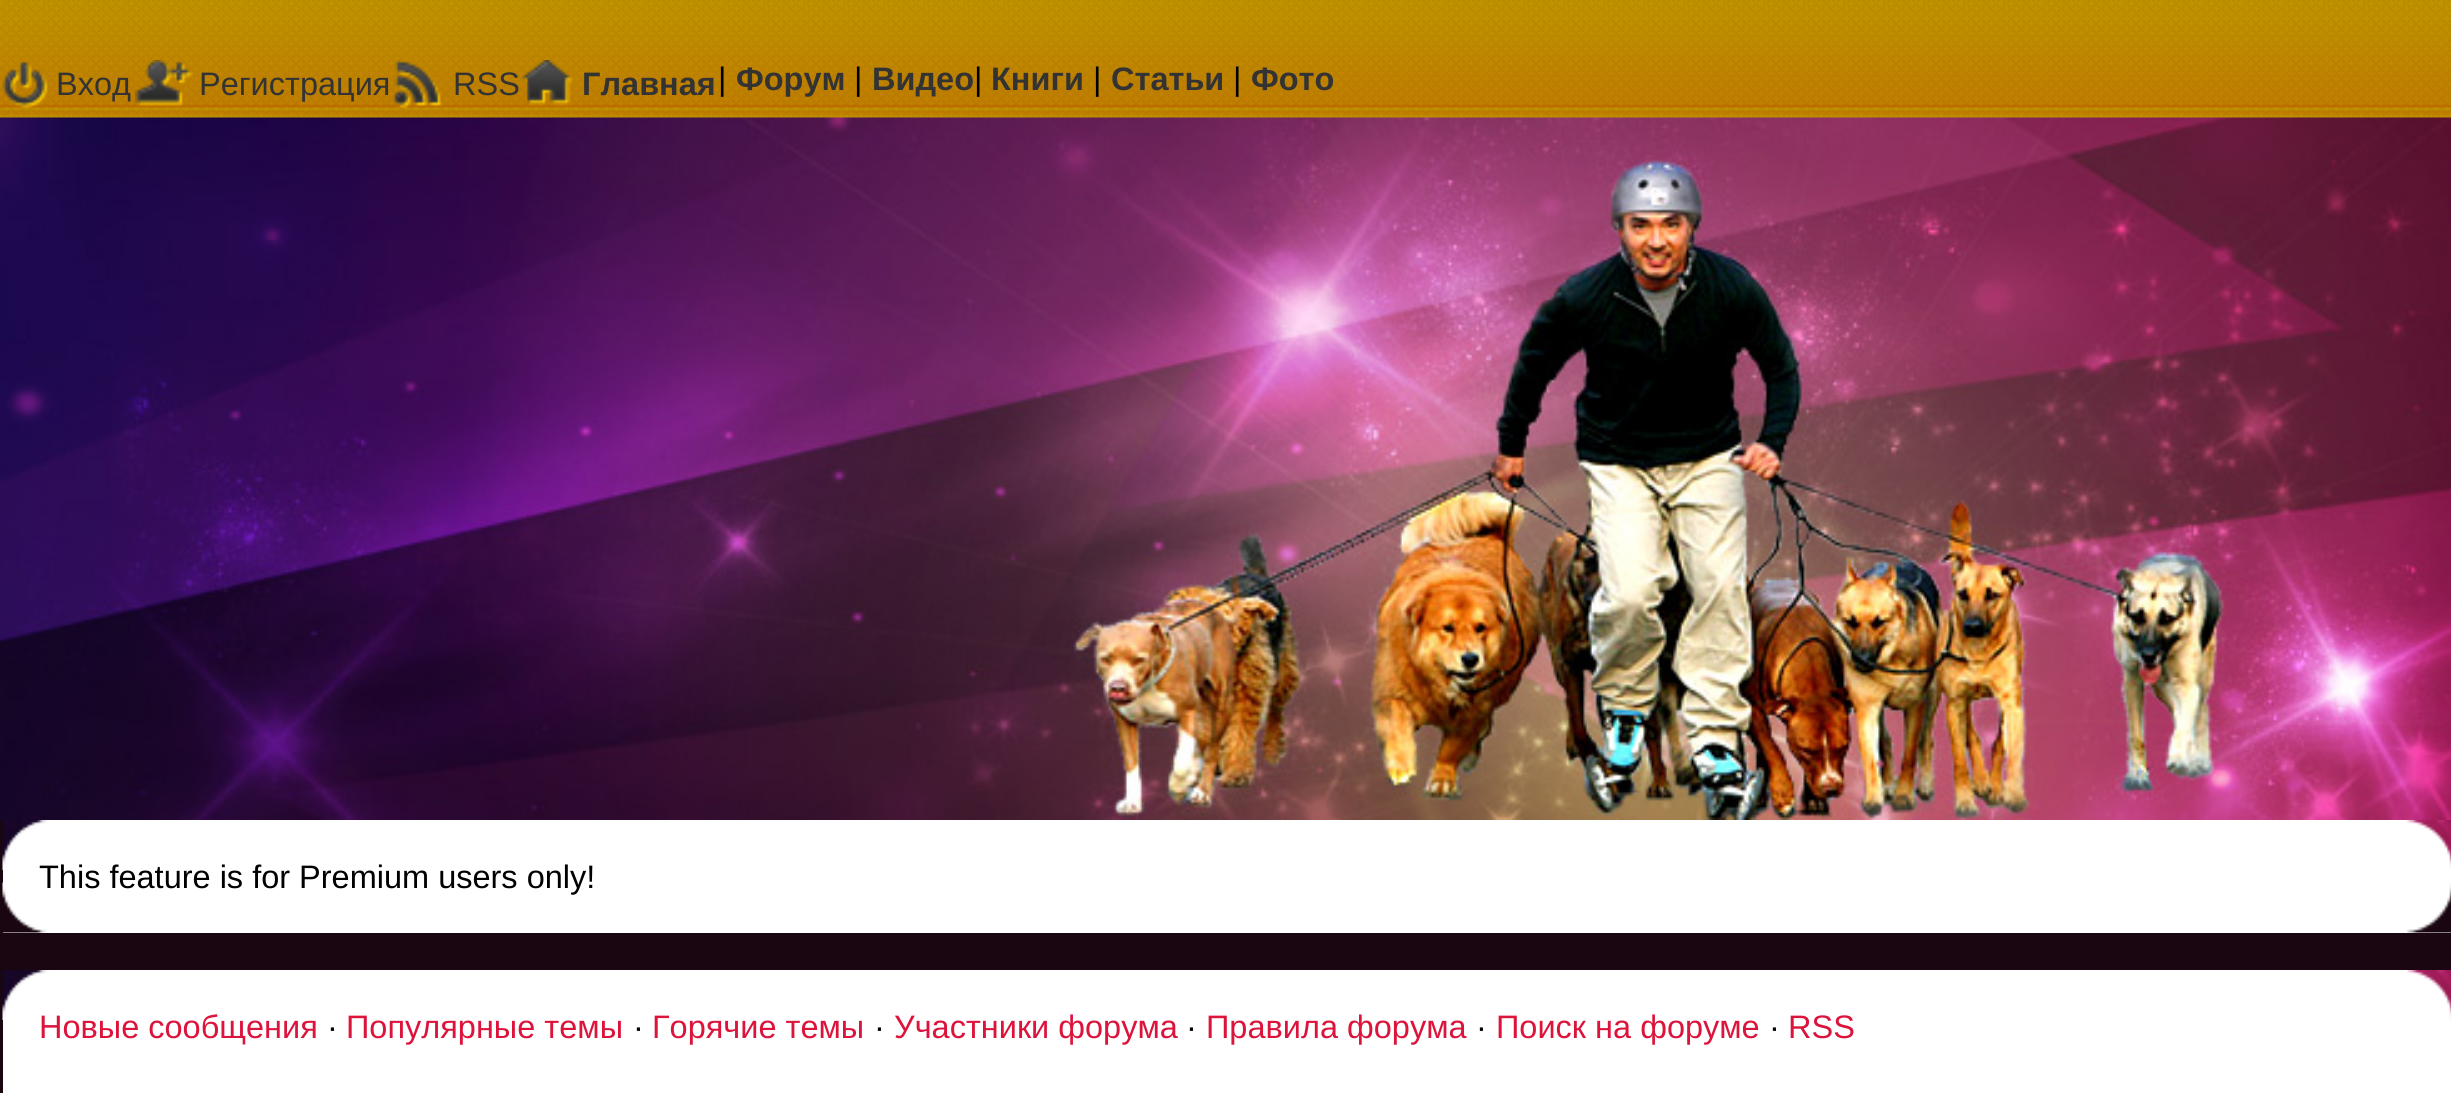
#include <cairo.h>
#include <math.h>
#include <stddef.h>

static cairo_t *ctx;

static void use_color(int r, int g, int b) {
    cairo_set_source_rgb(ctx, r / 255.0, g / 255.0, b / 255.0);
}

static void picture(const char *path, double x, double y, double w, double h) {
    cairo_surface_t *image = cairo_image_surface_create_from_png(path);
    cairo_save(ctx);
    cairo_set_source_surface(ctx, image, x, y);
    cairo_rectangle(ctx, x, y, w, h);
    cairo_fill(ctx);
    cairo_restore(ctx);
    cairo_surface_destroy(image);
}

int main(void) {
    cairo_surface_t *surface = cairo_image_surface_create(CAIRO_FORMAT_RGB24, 2451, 1093);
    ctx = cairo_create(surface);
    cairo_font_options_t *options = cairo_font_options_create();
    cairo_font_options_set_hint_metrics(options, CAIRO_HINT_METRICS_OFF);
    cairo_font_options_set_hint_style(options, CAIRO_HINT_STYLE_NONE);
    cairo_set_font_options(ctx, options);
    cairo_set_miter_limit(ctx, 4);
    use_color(25, 6, 17);
    cairo_paint(ctx);
    picture("img1.png", 0, 117, 2451, 703);
    picture("img2.png", 0, 0, 2451, 115);
    picture("img3.png", 2, 61, 46, 47);
    cairo_select_font_face(ctx, "Liberation Sans", CAIRO_FONT_SLANT_NORMAL, CAIRO_FONT_WEIGHT_NORMAL);
    cairo_set_font_size(ctx, 32.5);
    use_color(51, 51, 51);
    cairo_move_to(ctx, 56, 95);
    cairo_show_text(ctx, "Вход");
    picture("img4.png", 135, 60, 58, 46);
    cairo_move_to(ctx, 199, 95);
    cairo_show_text(ctx, "Регистрация");
    picture("img5.png", 392, 60, 51, 48);
    cairo_move_to(ctx, 453, 95);
    cairo_show_text(ctx, "RSS");
    picture("img6.png", 522, 60, 51, 46);
    cairo_select_font_face(ctx, "Liberation Sans", CAIRO_FONT_SLANT_NORMAL, CAIRO_FONT_WEIGHT_BOLD);
    cairo_move_to(ctx, 582, 95);
    cairo_show_text(ctx, "Главная");
    cairo_select_font_face(ctx, "Liberation Sans", CAIRO_FONT_SLANT_NORMAL, CAIRO_FONT_WEIGHT_NORMAL);
    use_color(0, 0, 0);
    cairo_move_to(ctx, 718, 90);
    cairo_show_text(ctx, "|");
    cairo_select_font_face(ctx, "Liberation Sans", CAIRO_FONT_SLANT_NORMAL, CAIRO_FONT_WEIGHT_BOLD);
    use_color(51, 51, 51);
    cairo_move_to(ctx, 736, 90);
    cairo_show_text(ctx, "Форум");
    cairo_select_font_face(ctx, "Liberation Sans", CAIRO_FONT_SLANT_NORMAL, CAIRO_FONT_WEIGHT_NORMAL);
    use_color(0, 0, 0);
    cairo_move_to(ctx, 854, 90);
    cairo_show_text(ctx, "|");
    cairo_select_font_face(ctx, "Liberation Sans", CAIRO_FONT_SLANT_NORMAL, CAIRO_FONT_WEIGHT_BOLD);
    use_color(51, 51, 51);
    cairo_move_to(ctx, 872, 90);
    cairo_show_text(ctx, "Видео");
    cairo_select_font_face(ctx, "Liberation Sans", CAIRO_FONT_SLANT_NORMAL, CAIRO_FONT_WEIGHT_NORMAL);
    use_color(0, 0, 0);
    cairo_move_to(ctx, 974, 90);
    cairo_show_text(ctx, "|");
    cairo_select_font_face(ctx, "Liberation Sans", CAIRO_FONT_SLANT_NORMAL, CAIRO_FONT_WEIGHT_BOLD);
    use_color(51, 51, 51);
    cairo_move_to(ctx, 991, 90);
    cairo_show_text(ctx, "Книги");
    cairo_select_font_face(ctx, "Liberation Sans", CAIRO_FONT_SLANT_NORMAL, CAIRO_FONT_WEIGHT_NORMAL);
    use_color(0, 0, 0);
    cairo_move_to(ctx, 1093, 90);
    cairo_show_text(ctx, "|");
    cairo_select_font_face(ctx, "Liberation Sans", CAIRO_FONT_SLANT_NORMAL, CAIRO_FONT_WEIGHT_BOLD);
    use_color(51, 51, 51);
    cairo_move_to(ctx, 1111, 90);
    cairo_show_text(ctx, "Статьи");
    cairo_select_font_face(ctx, "Liberation Sans", CAIRO_FONT_SLANT_NORMAL, CAIRO_FONT_WEIGHT_NORMAL);
    use_color(0, 0, 0);
    cairo_move_to(ctx, 1233, 90);
    cairo_show_text(ctx, "|");
    cairo_select_font_face(ctx, "Liberation Sans", CAIRO_FONT_SLANT_NORMAL, CAIRO_FONT_WEIGHT_BOLD);
    use_color(51, 51, 51);
    cairo_move_to(ctx, 1251, 90);
    cairo_show_text(ctx, "Фото");
    picture("img7.png", 0, 115, 2451, 3);
    use_color(255, 255, 255);
    cairo_rectangle(ctx, 3, 870, 2448, 63);
    cairo_fill(ctx);
    picture("img8.png", 2, 820, 2449, 50);
    picture("img9.png", 2, 882, 2449, 51);
    cairo_select_font_face(ctx, "Liberation Sans", CAIRO_FONT_SLANT_NORMAL, CAIRO_FONT_WEIGHT_NORMAL);
    use_color(0, 0, 0);
    cairo_move_to(ctx, 39, 888);
    cairo_show_text(ctx, "This feature is for Premium users only!");
    use_color(255, 255, 255);
    cairo_rectangle(ctx, 3, 1020, 2448, 73);
    cairo_fill(ctx);
    picture("img8.png", 2, 970, 2449, 50);
    use_color(220, 20, 60);
    cairo_move_to(ctx, 39, 1038);
    cairo_show_text(ctx, "Новые сообщения");
    use_color(0, 0, 0);
    cairo_move_to(ctx, 327, 1038);
    cairo_show_text(ctx, "·");
    use_color(220, 20, 60);
    cairo_move_to(ctx, 346, 1038);
    cairo_show_text(ctx, "Популярные темы");
    use_color(0, 0, 0);
    cairo_move_to(ctx, 633, 1038);
    cairo_show_text(ctx, "·");
    use_color(220, 20, 60);
    cairo_move_to(ctx, 652, 1038);
    cairo_show_text(ctx, "Горячие темы");
    use_color(0, 0, 0);
    cairo_move_to(ctx, 874, 1038);
    cairo_show_text(ctx, "·");
    use_color(220, 20, 60);
    cairo_move_to(ctx, 894, 1038);
    cairo_show_text(ctx, "Участники форума");
    use_color(0, 0, 0);
    cairo_move_to(ctx, 1186, 1038);
    cairo_show_text(ctx, "·");
    use_color(220, 20, 60);
    cairo_move_to(ctx, 1206, 1038);
    cairo_show_text(ctx, "Правила форума");
    use_color(0, 0, 0);
    cairo_move_to(ctx, 1476, 1038);
    cairo_show_text(ctx, "·");
    use_color(220, 20, 60);
    cairo_move_to(ctx, 1496, 1038);
    cairo_show_text(ctx, "Поиск на форуме");
    use_color(0, 0, 0);
    cairo_move_to(ctx, 1769, 1038);
    cairo_show_text(ctx, "·");
    use_color(220, 20, 60);
    cairo_move_to(ctx, 1788, 1038);
    cairo_show_text(ctx, "RSS");
    cairo_surface_write_to_png(surface, "result.png");
    cairo_font_options_destroy(options);
    cairo_destroy(ctx);
    cairo_surface_destroy(surface);
    return 0;
}
